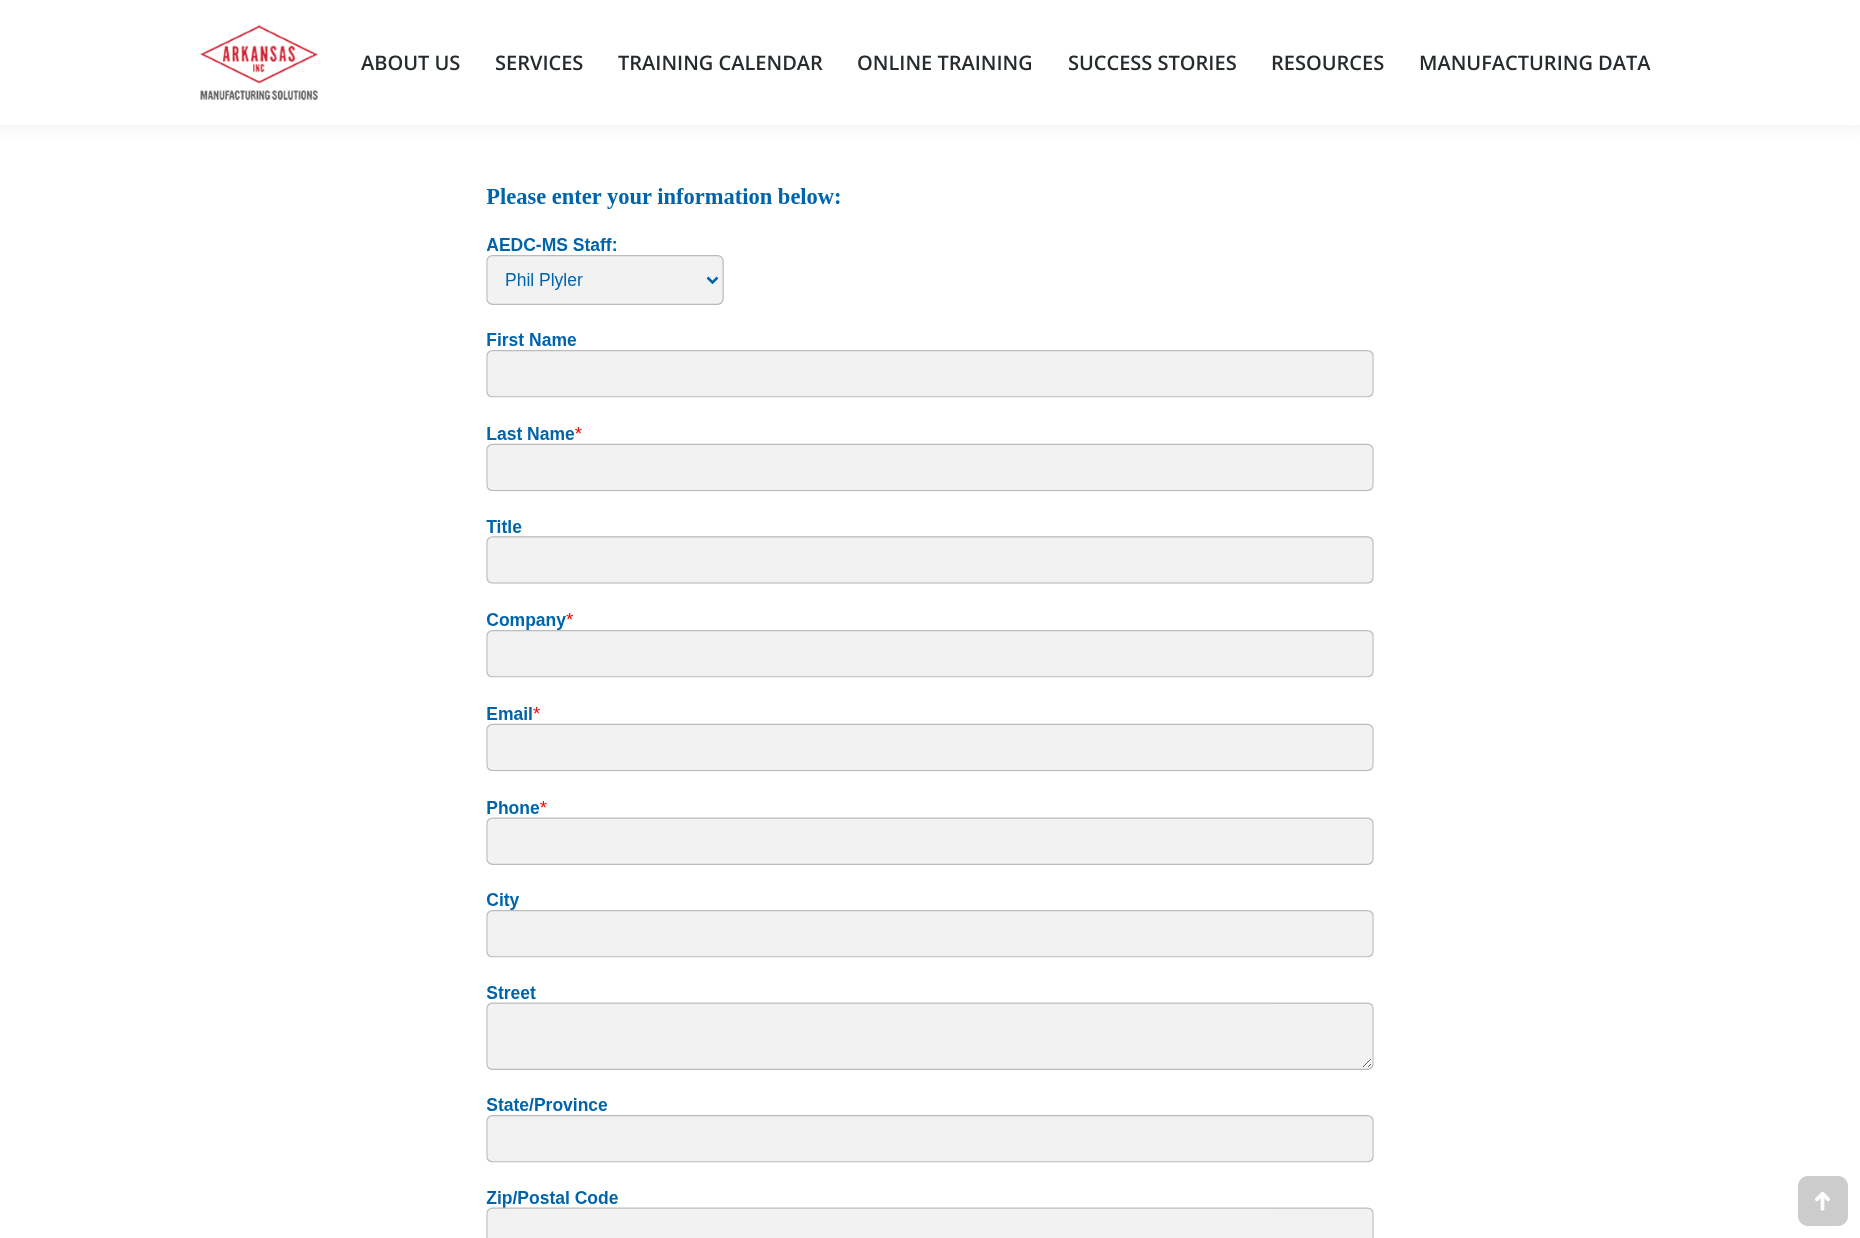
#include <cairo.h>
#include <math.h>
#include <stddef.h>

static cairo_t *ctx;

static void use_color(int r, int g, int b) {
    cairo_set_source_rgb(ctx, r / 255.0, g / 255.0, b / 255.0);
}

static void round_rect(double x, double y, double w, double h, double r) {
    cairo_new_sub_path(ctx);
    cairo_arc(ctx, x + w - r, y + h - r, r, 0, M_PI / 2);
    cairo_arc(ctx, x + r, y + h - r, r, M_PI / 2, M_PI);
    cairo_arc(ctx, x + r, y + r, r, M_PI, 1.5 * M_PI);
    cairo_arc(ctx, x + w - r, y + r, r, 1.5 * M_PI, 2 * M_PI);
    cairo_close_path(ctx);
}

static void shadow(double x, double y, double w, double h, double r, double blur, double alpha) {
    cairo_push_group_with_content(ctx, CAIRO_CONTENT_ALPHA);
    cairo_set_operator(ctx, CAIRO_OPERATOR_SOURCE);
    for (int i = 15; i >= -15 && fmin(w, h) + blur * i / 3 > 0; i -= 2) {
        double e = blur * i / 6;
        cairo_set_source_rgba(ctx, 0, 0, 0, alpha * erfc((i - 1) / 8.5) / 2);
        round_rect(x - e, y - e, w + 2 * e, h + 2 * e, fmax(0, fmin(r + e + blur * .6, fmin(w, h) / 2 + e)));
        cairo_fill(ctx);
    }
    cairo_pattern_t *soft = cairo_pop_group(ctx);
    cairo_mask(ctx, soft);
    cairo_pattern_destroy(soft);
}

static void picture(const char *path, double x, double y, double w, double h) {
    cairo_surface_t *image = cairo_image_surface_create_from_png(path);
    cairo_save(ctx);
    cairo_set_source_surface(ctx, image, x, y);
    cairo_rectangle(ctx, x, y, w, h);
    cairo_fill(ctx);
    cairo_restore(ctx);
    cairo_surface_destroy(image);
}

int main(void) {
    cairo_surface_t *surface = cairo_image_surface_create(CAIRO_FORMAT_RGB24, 1860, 1238);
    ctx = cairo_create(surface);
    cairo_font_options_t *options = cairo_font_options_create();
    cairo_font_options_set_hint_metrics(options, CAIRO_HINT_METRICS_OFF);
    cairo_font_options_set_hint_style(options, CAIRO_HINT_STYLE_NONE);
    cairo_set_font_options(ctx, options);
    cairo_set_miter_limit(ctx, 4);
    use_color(255, 255, 255);
    cairo_paint(ctx);
    use_color(0, 0, 0);
    shadow(-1, -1, 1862, 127, 0, 9.5, 0.07);
    use_color(255, 255, 255);
    cairo_rectangle(ctx, 0, 0, 1860, 125);
    cairo_fill(ctx);
    picture("img1.png", 200, 25, 118, 75);
    cairo_select_font_face(ctx, "Open Sans SemiBold", CAIRO_FONT_SLANT_NORMAL, CAIRO_FONT_WEIGHT_NORMAL);
    cairo_set_font_size(ctx, 20);
    use_color(38, 43, 46);
    cairo_move_to(ctx, 361, 70);
    cairo_show_text(ctx, "ABOUT US");
    cairo_move_to(ctx, 495, 70);
    cairo_show_text(ctx, "SERVICES");
    cairo_move_to(ctx, 618, 70);
    cairo_show_text(ctx, "TRAINING CALENDAR");
    cairo_move_to(ctx, 857, 70);
    cairo_show_text(ctx, "ONLINE TRAINING");
    cairo_move_to(ctx, 1068, 70);
    cairo_show_text(ctx, "SUCCESS STORIES");
    cairo_move_to(ctx, 1271, 70);
    cairo_show_text(ctx, "RESOURCES");
    cairo_move_to(ctx, 1419, 70);
    cairo_show_text(ctx, "MANUFACTURING DATA");
    picture("img2.png", 486, 188, 888, 1050);
    use_color(204, 204, 204);
    round_rect(1798, 1176, 50, 50, 10);
    cairo_fill(ctx);
    picture("img3.png", 1815, 1192, 15, 19);
    cairo_surface_write_to_png(surface, "result.png");
    cairo_font_options_destroy(options);
    cairo_destroy(ctx);
    cairo_surface_destroy(surface);
    return 0;
}
